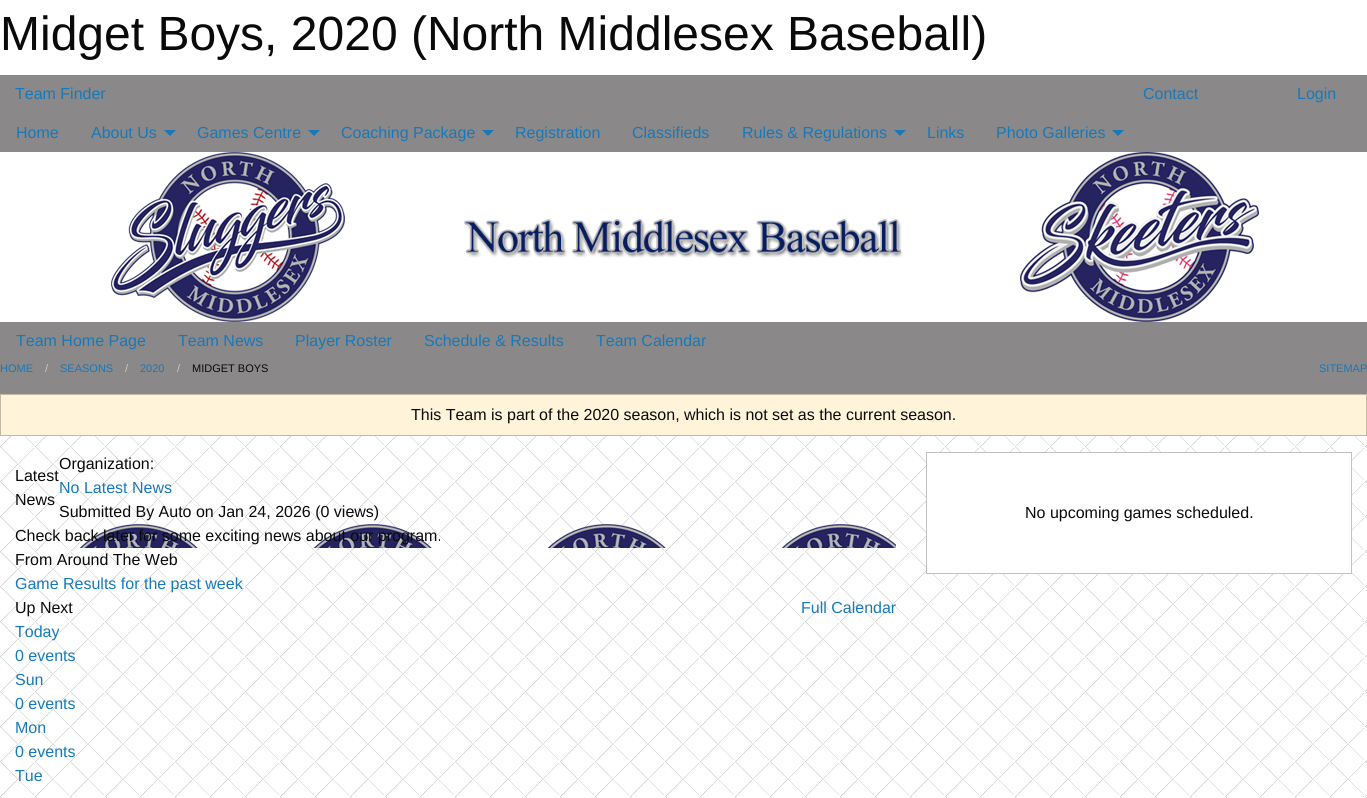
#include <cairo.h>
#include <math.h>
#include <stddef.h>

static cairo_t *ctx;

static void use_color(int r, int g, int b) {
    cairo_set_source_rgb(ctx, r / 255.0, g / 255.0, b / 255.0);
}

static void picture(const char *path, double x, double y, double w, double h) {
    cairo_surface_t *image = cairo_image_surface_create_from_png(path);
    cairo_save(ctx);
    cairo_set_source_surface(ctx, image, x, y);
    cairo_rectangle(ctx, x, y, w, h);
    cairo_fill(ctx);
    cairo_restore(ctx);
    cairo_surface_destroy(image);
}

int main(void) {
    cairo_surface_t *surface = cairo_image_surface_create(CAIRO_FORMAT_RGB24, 1367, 798);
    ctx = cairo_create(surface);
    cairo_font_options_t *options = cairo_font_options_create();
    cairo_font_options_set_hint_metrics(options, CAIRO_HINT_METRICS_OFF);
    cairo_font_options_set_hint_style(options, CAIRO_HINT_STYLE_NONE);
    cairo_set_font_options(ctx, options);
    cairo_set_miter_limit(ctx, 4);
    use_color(255, 255, 255);
    cairo_paint(ctx);
    cairo_select_font_face(ctx, "Liberation Sans", CAIRO_FONT_SLANT_NORMAL, CAIRO_FONT_WEIGHT_NORMAL);
    cairo_set_font_size(ctx, 48);
    use_color(10, 10, 10);
    cairo_move_to(ctx, 0, 50);
    cairo_show_text(ctx, "Midget Boys, 2020 (North Middlesex Baseball)");
    use_color(138, 136, 136);
    cairo_rectangle(ctx, 0, 75, 1367, 319);
    cairo_fill(ctx);
    cairo_set_font_size(ctx, 16);
    use_color(23, 121, 186);
    cairo_move_to(ctx, 15, 99);
    cairo_show_text(ctx, "Team Finder");
    cairo_move_to(ctx, 1143, 99);
    cairo_show_text(ctx, "Contact");
    cairo_move_to(ctx, 1297, 99);
    cairo_show_text(ctx, "Login");
    cairo_move_to(ctx, 16, 138);
    cairo_show_text(ctx, "Home");
    cairo_move_to(ctx, 91, 138);
    cairo_show_text(ctx, "About Us");
    cairo_new_path(ctx);
    cairo_move_to(ctx, 164, 130);
    cairo_line_to(ctx, 176, 130);
    cairo_line_to(ctx, 170, 136);
    cairo_close_path(ctx);
    cairo_fill(ctx);
    cairo_move_to(ctx, 197, 138);
    cairo_show_text(ctx, "Games Centre");
    cairo_new_path(ctx);
    cairo_move_to(ctx, 308, 130);
    cairo_line_to(ctx, 320, 130);
    cairo_line_to(ctx, 314, 136);
    cairo_close_path(ctx);
    cairo_fill(ctx);
    cairo_move_to(ctx, 341, 138);
    cairo_show_text(ctx, "Coaching Package");
    cairo_new_path(ctx);
    cairo_move_to(ctx, 482, 130);
    cairo_line_to(ctx, 494, 130);
    cairo_line_to(ctx, 488, 136);
    cairo_close_path(ctx);
    cairo_fill(ctx);
    cairo_move_to(ctx, 515, 138);
    cairo_show_text(ctx, "Registration");
    cairo_move_to(ctx, 632, 138);
    cairo_show_text(ctx, "Classifieds");
    cairo_move_to(ctx, 742, 138);
    cairo_show_text(ctx, "Rules & Regulations");
    cairo_new_path(ctx);
    cairo_move_to(ctx, 894, 130);
    cairo_line_to(ctx, 906, 130);
    cairo_line_to(ctx, 900, 136);
    cairo_close_path(ctx);
    cairo_fill(ctx);
    cairo_move_to(ctx, 927, 138);
    cairo_show_text(ctx, "Links");
    cairo_move_to(ctx, 996, 138);
    cairo_show_text(ctx, "Photo Galleries");
    cairo_new_path(ctx);
    cairo_move_to(ctx, 1112, 130);
    cairo_line_to(ctx, 1124, 130);
    cairo_line_to(ctx, 1118, 136);
    cairo_close_path(ctx);
    cairo_fill(ctx);
    use_color(255, 255, 255);
    cairo_rectangle(ctx, 0, 152, 1367, 170);
    cairo_fill(ctx);
    picture("img1.png", 111, 152, 234, 170);
    picture("img2.png", 463, 219, 440, 39);
    picture("img3.png", 1020, 152, 239, 170);
    use_color(23, 121, 186);
    cairo_move_to(ctx, 16, 346);
    cairo_show_text(ctx, "Team Home Page");
    cairo_move_to(ctx, 178, 346);
    cairo_show_text(ctx, "Team News");
    cairo_move_to(ctx, 295, 346);
    cairo_show_text(ctx, "Player Roster");
    cairo_move_to(ctx, 424, 346);
    cairo_show_text(ctx, "Schedule & Results");
    cairo_move_to(ctx, 596, 346);
    cairo_show_text(ctx, "Team Calendar");
    cairo_set_font_size(ctx, 11);
    cairo_move_to(ctx, 0, 372);
    cairo_show_text(ctx, "HOME");
    use_color(202, 202, 202);
    cairo_move_to(ctx, 45, 372);
    cairo_show_text(ctx, "/");
    use_color(23, 121, 186);
    cairo_move_to(ctx, 60, 372);
    cairo_show_text(ctx, "SEASONS");
    use_color(202, 202, 202);
    cairo_move_to(ctx, 125, 372);
    cairo_show_text(ctx, "/");
    use_color(23, 121, 186);
    cairo_move_to(ctx, 140, 372);
    cairo_show_text(ctx, "2020");
    use_color(202, 202, 202);
    cairo_move_to(ctx, 177, 372);
    cairo_show_text(ctx, "/");
    use_color(10, 10, 10);
    cairo_move_to(ctx, 192, 372);
    cairo_show_text(ctx, "MIDGET BOYS");
    use_color(23, 121, 186);
    cairo_move_to(ctx, 1319, 372);
    cairo_show_text(ctx, "SITEMAP");
    picture("img4.png", 0, 436, 1367, 362);
    use_color(255, 243, 217);
    cairo_rectangle(ctx, 0.5, 394.5, 1366, 41);
    cairo_fill_preserve(ctx);
    use_color(194, 185, 165);
    cairo_set_line_width(ctx, 1);
    cairo_stroke(ctx);
    cairo_set_font_size(ctx, 16);
    use_color(10, 10, 10);
    cairo_move_to(ctx, 411, 420);
    cairo_show_text(ctx, "This Team is part of the 2020 season, which is not set as the current season.");
    cairo_move_to(ctx, 15, 481);
    cairo_show_text(ctx, "Latest");
    cairo_move_to(ctx, 15, 505);
    cairo_show_text(ctx, "News");
    cairo_move_to(ctx, 59, 469);
    cairo_show_text(ctx, "Organization:");
    use_color(23, 121, 186);
    cairo_move_to(ctx, 59, 493);
    cairo_show_text(ctx, "No Latest News");
    use_color(10, 10, 10);
    cairo_move_to(ctx, 59, 517);
    cairo_show_text(ctx, "Submitted By Auto on Jan 24, 2026 (0 views)");
    picture("img5.png", 79, 524, 817, 24);
    cairo_move_to(ctx, 15, 541);
    cairo_show_text(ctx, "Check back later for some exciting news about our program.");
    cairo_move_to(ctx, 15, 565);
    cairo_show_text(ctx, "From Around The Web");
    use_color(23, 121, 186);
    cairo_move_to(ctx, 15, 589);
    cairo_show_text(ctx, "Game Results for the past week");
    use_color(255, 255, 255);
    cairo_rectangle(ctx, 926.5, 452.5, 425, 121);
    cairo_fill_preserve(ctx);
    use_color(194, 194, 194);
    cairo_stroke(ctx);
    use_color(10, 10, 10);
    cairo_move_to(ctx, 1025, 518);
    cairo_show_text(ctx, "No upcoming games scheduled.");
    cairo_move_to(ctx, 15, 613);
    cairo_show_text(ctx, "Up Next");
    use_color(23, 121, 186);
    cairo_move_to(ctx, 801, 613);
    cairo_show_text(ctx, "Full Calendar");
    cairo_move_to(ctx, 15, 637);
    cairo_show_text(ctx, "Today");
    cairo_move_to(ctx, 15, 661);
    cairo_show_text(ctx, "0 events");
    cairo_move_to(ctx, 15, 685);
    cairo_show_text(ctx, "Sun");
    cairo_move_to(ctx, 15, 709);
    cairo_show_text(ctx, "0 events");
    cairo_move_to(ctx, 15, 733);
    cairo_show_text(ctx, "Mon");
    cairo_move_to(ctx, 15, 757);
    cairo_show_text(ctx, "0 events");
    cairo_move_to(ctx, 15, 781);
    cairo_show_text(ctx, "Tue");
    cairo_surface_write_to_png(surface, "result.png");
    cairo_font_options_destroy(options);
    cairo_destroy(ctx);
    cairo_surface_destroy(surface);
    return 0;
}
